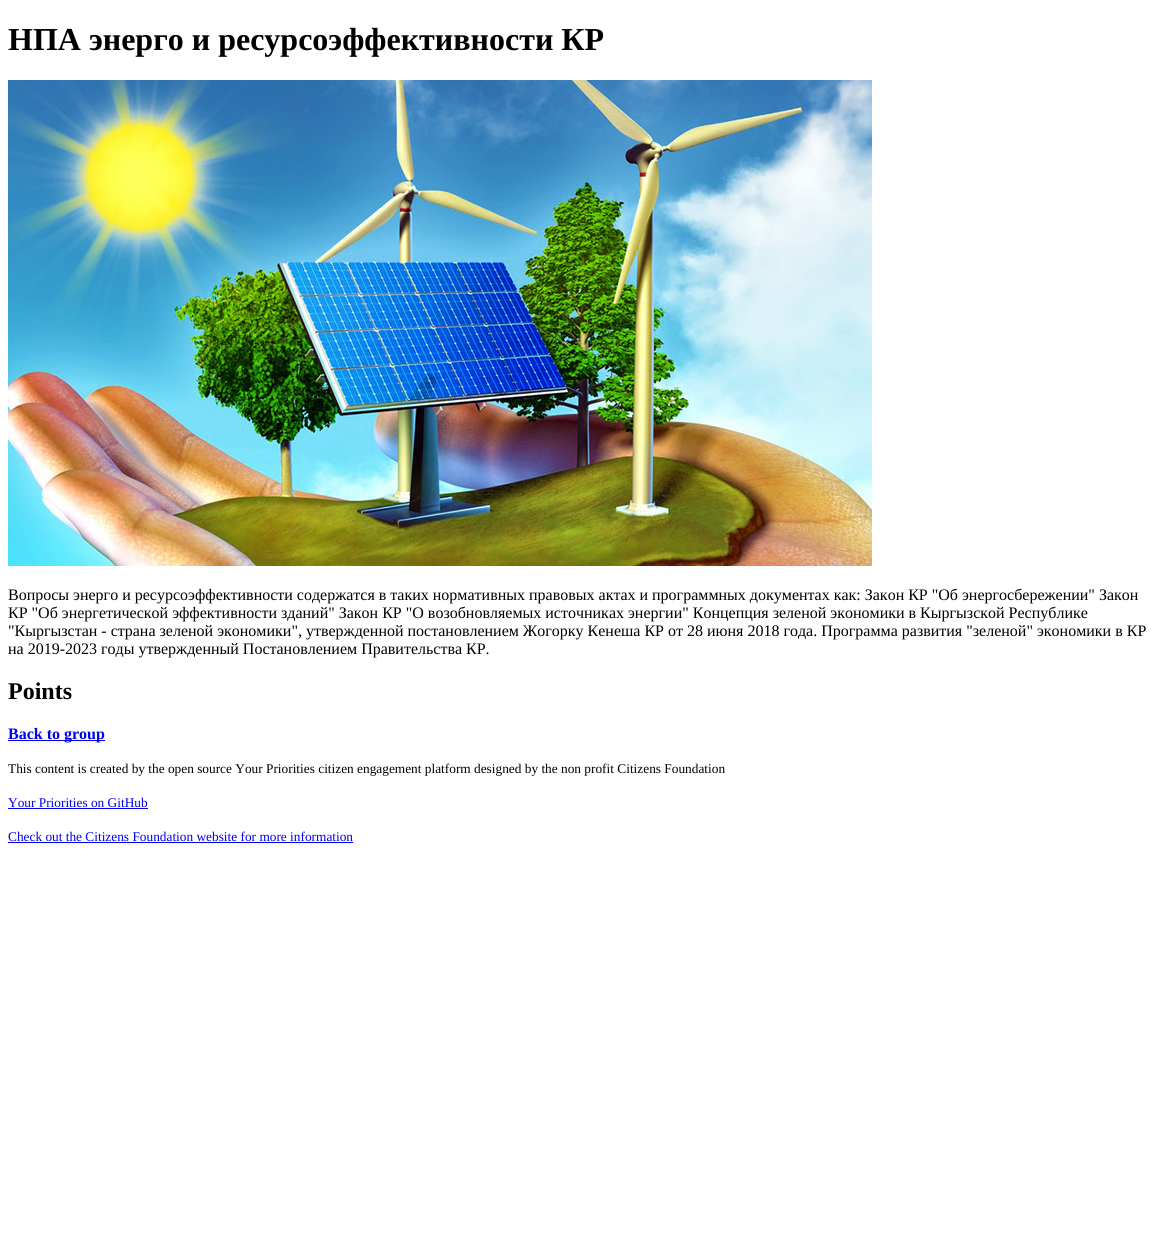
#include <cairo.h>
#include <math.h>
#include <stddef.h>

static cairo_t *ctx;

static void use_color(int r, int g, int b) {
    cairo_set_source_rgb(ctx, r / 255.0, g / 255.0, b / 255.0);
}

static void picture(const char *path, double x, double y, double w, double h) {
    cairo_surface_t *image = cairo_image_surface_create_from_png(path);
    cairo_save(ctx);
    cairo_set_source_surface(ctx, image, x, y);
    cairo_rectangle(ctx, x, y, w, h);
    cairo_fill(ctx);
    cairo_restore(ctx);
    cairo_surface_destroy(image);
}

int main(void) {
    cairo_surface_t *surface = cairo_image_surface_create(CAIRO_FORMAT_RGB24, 1167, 1254);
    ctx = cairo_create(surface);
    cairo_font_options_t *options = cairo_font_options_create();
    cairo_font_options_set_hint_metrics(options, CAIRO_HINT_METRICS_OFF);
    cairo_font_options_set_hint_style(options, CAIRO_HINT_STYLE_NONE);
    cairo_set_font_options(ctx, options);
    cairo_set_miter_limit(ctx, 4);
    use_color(255, 255, 255);
    cairo_paint(ctx);
    cairo_select_font_face(ctx, "Liberation Serif", CAIRO_FONT_SLANT_NORMAL, CAIRO_FONT_WEIGHT_BOLD);
    cairo_set_font_size(ctx, 32);
    use_color(0, 0, 0);
    cairo_move_to(ctx, 8, 50);
    cairo_show_text(ctx, "НПА энерго и ресурсоэффективности КР");
    picture("img1.png", 8, 80, 864, 486);
    cairo_select_font_face(ctx, "Liberation Serif", CAIRO_FONT_SLANT_NORMAL, CAIRO_FONT_WEIGHT_NORMAL);
    cairo_set_font_size(ctx, 16);
    cairo_move_to(ctx, 8, 600);
    cairo_show_text(ctx, "Вопросы энерго и ресурсоэффективности содержатся в таких нормативных правовых актах и программных документах как: Закон КР \"Об энергосбережении\" Закон");
    cairo_move_to(ctx, 8, 618);
    cairo_show_text(ctx, "КР \"Об энергетической эффективности зданий\" Закон КР \"О возобновляемых источниках энергии\" Концепция зеленой экономики в Кыргызской Республике");
    cairo_move_to(ctx, 8, 636);
    cairo_show_text(ctx, "\"Кыргызстан - страна зеленой экономики\", утвержденной постановлением Жогорку Кенеша КР от 28 июня 2018 года. Программа развития \"зеленой\" экономики в КР");
    cairo_move_to(ctx, 8, 654);
    cairo_show_text(ctx, "на 2019-2023 годы утвержденный Постановлением Правительства КР.");
    cairo_select_font_face(ctx, "Liberation Serif", CAIRO_FONT_SLANT_NORMAL, CAIRO_FONT_WEIGHT_BOLD);
    cairo_set_font_size(ctx, 24);
    cairo_move_to(ctx, 8, 699);
    cairo_show_text(ctx, "Points");
    use_color(0, 0, 238);
    cairo_rectangle(ctx, 8, 740, 97, 1);
    cairo_fill(ctx);
    cairo_set_font_size(ctx, 16);
    cairo_move_to(ctx, 8, 739);
    cairo_show_text(ctx, "Back to group");
    cairo_select_font_face(ctx, "Liberation Serif", CAIRO_FONT_SLANT_NORMAL, CAIRO_FONT_WEIGHT_NORMAL);
    cairo_set_font_size(ctx, 13.33);
    use_color(0, 0, 0);
    cairo_move_to(ctx, 8, 773);
    cairo_show_text(ctx, "This content is created by the open source Your Priorities citizen engagement platform designed by the non profit Citizens Foundation");
    use_color(0, 0, 238);
    cairo_move_to(ctx, 8, 807);
    cairo_show_text(ctx, "Your Priorities on GitHub");
    cairo_rectangle(ctx, 8, 808, 140, 1);
    cairo_fill(ctx);
    cairo_move_to(ctx, 8, 841);
    cairo_show_text(ctx, "Check out the Citizens Foundation website for more information");
    cairo_rectangle(ctx, 8, 842, 345, 1);
    cairo_fill(ctx);
    cairo_surface_write_to_png(surface, "result.png");
    cairo_font_options_destroy(options);
    cairo_destroy(ctx);
    cairo_surface_destroy(surface);
    return 0;
}
